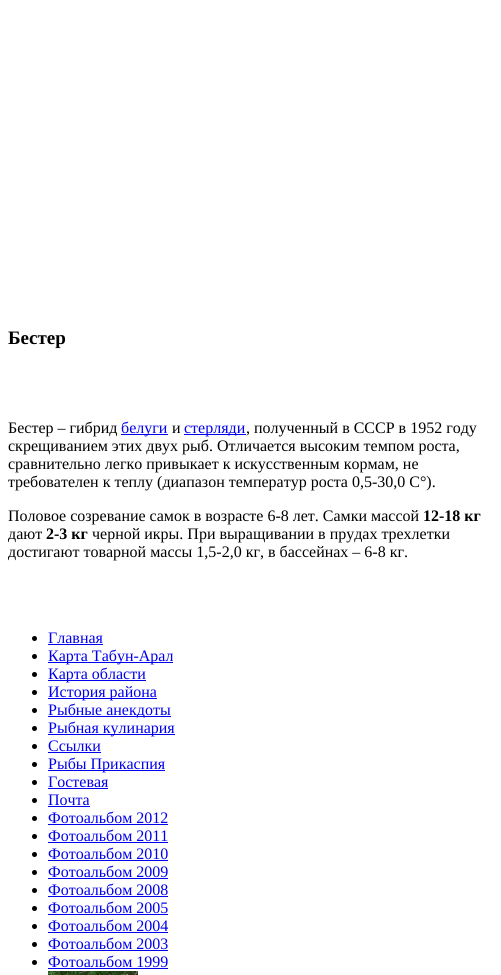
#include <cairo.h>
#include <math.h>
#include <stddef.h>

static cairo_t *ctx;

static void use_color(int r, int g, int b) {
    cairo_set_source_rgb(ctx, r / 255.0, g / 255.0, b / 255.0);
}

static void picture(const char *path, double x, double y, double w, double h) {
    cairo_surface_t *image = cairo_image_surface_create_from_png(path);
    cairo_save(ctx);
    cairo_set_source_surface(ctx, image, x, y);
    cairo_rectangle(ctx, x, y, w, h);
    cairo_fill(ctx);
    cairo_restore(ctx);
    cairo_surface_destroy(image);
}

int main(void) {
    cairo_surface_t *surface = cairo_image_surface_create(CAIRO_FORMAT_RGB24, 501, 975);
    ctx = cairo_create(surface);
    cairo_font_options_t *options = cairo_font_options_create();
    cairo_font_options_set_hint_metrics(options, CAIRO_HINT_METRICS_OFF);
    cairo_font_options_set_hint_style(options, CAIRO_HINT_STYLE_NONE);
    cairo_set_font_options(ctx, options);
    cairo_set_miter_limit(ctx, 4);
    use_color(255, 255, 255);
    cairo_paint(ctx);
    cairo_select_font_face(ctx, "Liberation Serif", CAIRO_FONT_SLANT_NORMAL, CAIRO_FONT_WEIGHT_BOLD);
    cairo_set_font_size(ctx, 19);
    use_color(0, 0, 0);
    cairo_move_to(ctx, 8, 344);
    cairo_show_text(ctx, "Бестер");
    cairo_select_font_face(ctx, "Liberation Serif", CAIRO_FONT_SLANT_NORMAL, CAIRO_FONT_WEIGHT_NORMAL);
    cairo_set_font_size(ctx, 16);
    cairo_move_to(ctx, 8, 433);
    cairo_show_text(ctx, "Бестер – гибрид");
    use_color(0, 0, 238);
    cairo_rectangle(ctx, 121, 434, 47, 1);
    cairo_fill(ctx);
    cairo_move_to(ctx, 121, 433);
    cairo_show_text(ctx, "белуги");
    use_color(0, 0, 0);
    cairo_move_to(ctx, 172, 433);
    cairo_show_text(ctx, "и");
    use_color(0, 0, 238);
    cairo_rectangle(ctx, 184, 434, 62, 1);
    cairo_fill(ctx);
    cairo_move_to(ctx, 184, 433);
    cairo_show_text(ctx, "стерляди");
    use_color(0, 0, 0);
    cairo_move_to(ctx, 246, 433);
    cairo_show_text(ctx, ", полученный в СССР в 1952 году");
    cairo_move_to(ctx, 8, 451);
    cairo_show_text(ctx, "скрещиванием этих двух рыб. Отличается высоким темпом роста,");
    cairo_move_to(ctx, 8, 469);
    cairo_show_text(ctx, "сравнительно легко привыкает к искусственным кормам, не");
    cairo_move_to(ctx, 8, 487);
    cairo_show_text(ctx, "требователен к теплу (диапазон температур роста 0,5-30,0 С°).");
    cairo_move_to(ctx, 8, 521);
    cairo_show_text(ctx, "Половое созревание самок в возрасте 6-8 лет. Самки массой");
    cairo_select_font_face(ctx, "Liberation Serif", CAIRO_FONT_SLANT_NORMAL, CAIRO_FONT_WEIGHT_BOLD);
    cairo_move_to(ctx, 423, 521);
    cairo_show_text(ctx, "12-18 кг");
    cairo_select_font_face(ctx, "Liberation Serif", CAIRO_FONT_SLANT_NORMAL, CAIRO_FONT_WEIGHT_NORMAL);
    cairo_move_to(ctx, 8, 539);
    cairo_show_text(ctx, "дают");
    cairo_select_font_face(ctx, "Liberation Serif", CAIRO_FONT_SLANT_NORMAL, CAIRO_FONT_WEIGHT_BOLD);
    cairo_move_to(ctx, 46, 539);
    cairo_show_text(ctx, "2-3 кг");
    cairo_select_font_face(ctx, "Liberation Serif", CAIRO_FONT_SLANT_NORMAL, CAIRO_FONT_WEIGHT_NORMAL);
    cairo_move_to(ctx, 92, 539);
    cairo_show_text(ctx, "черной икры. При выращивании в прудах трехлетки");
    cairo_move_to(ctx, 8, 557);
    cairo_show_text(ctx, "достигают товарной массы 1,5-2,0 кг, в бассейнах – 6-8 кг.");
    cairo_new_path(ctx);
    cairo_arc(ctx, 34.5, 638.5, 2.5, 0, 2 * M_PI);
    cairo_fill(ctx);
    use_color(0, 0, 238);
    cairo_move_to(ctx, 48, 643);
    cairo_show_text(ctx, "Главная");
    cairo_rectangle(ctx, 48, 644, 55, 1);
    cairo_fill(ctx);
    use_color(0, 0, 0);
    cairo_arc(ctx, 34.5, 656.5, 2.5, 0, 2 * M_PI);
    cairo_fill(ctx);
    use_color(0, 0, 238);
    cairo_rectangle(ctx, 48, 662, 125, 1);
    cairo_fill(ctx);
    cairo_move_to(ctx, 48, 661);
    cairo_show_text(ctx, "Карта Табун-Арал");
    use_color(0, 0, 0);
    cairo_new_path(ctx);
    cairo_arc(ctx, 34.5, 674.5, 2.5, 0, 2 * M_PI);
    cairo_fill(ctx);
    use_color(0, 0, 238);
    cairo_rectangle(ctx, 48, 680, 98, 1);
    cairo_fill(ctx);
    cairo_move_to(ctx, 48, 679);
    cairo_show_text(ctx, "Карта области");
    use_color(0, 0, 0);
    cairo_new_path(ctx);
    cairo_arc(ctx, 34.5, 692.5, 2.5, 0, 2 * M_PI);
    cairo_fill(ctx);
    use_color(0, 0, 238);
    cairo_rectangle(ctx, 48, 698, 109, 1);
    cairo_fill(ctx);
    cairo_move_to(ctx, 48, 697);
    cairo_show_text(ctx, "История района");
    use_color(0, 0, 0);
    cairo_new_path(ctx);
    cairo_arc(ctx, 34.5, 710.5, 2.5, 0, 2 * M_PI);
    cairo_fill(ctx);
    use_color(0, 0, 238);
    cairo_rectangle(ctx, 48, 716, 123, 1);
    cairo_fill(ctx);
    cairo_move_to(ctx, 48, 715);
    cairo_show_text(ctx, "Рыбные анекдоты");
    use_color(0, 0, 0);
    cairo_new_path(ctx);
    cairo_arc(ctx, 34.5, 728.5, 2.5, 0, 2 * M_PI);
    cairo_fill(ctx);
    use_color(0, 0, 238);
    cairo_rectangle(ctx, 48, 734, 127, 1);
    cairo_fill(ctx);
    cairo_move_to(ctx, 48, 733);
    cairo_show_text(ctx, "Рыбная кулинария");
    use_color(0, 0, 0);
    cairo_new_path(ctx);
    cairo_arc(ctx, 34.5, 746.5, 2.5, 0, 2 * M_PI);
    cairo_fill(ctx);
    use_color(0, 0, 238);
    cairo_move_to(ctx, 48, 751);
    cairo_show_text(ctx, "Ссылки");
    cairo_rectangle(ctx, 48, 752, 53, 1);
    cairo_fill(ctx);
    use_color(0, 0, 0);
    cairo_arc(ctx, 34.5, 764.5, 2.5, 0, 2 * M_PI);
    cairo_fill(ctx);
    use_color(0, 0, 238);
    cairo_rectangle(ctx, 48, 770, 117, 1);
    cairo_fill(ctx);
    cairo_move_to(ctx, 48, 769);
    cairo_show_text(ctx, "Рыбы Прикаспия");
    use_color(0, 0, 0);
    cairo_new_path(ctx);
    cairo_arc(ctx, 34.5, 782.5, 2.5, 0, 2 * M_PI);
    cairo_fill(ctx);
    use_color(0, 0, 238);
    cairo_move_to(ctx, 48, 787);
    cairo_show_text(ctx, "Гостевая");
    cairo_rectangle(ctx, 48, 788, 60, 1);
    cairo_fill(ctx);
    use_color(0, 0, 0);
    cairo_arc(ctx, 34.5, 800.5, 2.5, 0, 2 * M_PI);
    cairo_fill(ctx);
    use_color(0, 0, 238);
    cairo_move_to(ctx, 48, 805);
    cairo_show_text(ctx, "Почта");
    cairo_rectangle(ctx, 48, 806, 42, 1);
    cairo_fill(ctx);
    use_color(0, 0, 0);
    cairo_arc(ctx, 34.5, 818.5, 2.5, 0, 2 * M_PI);
    cairo_fill(ctx);
    use_color(0, 0, 238);
    cairo_move_to(ctx, 48, 823);
    cairo_show_text(ctx, "Фотоальбом 2012");
    cairo_rectangle(ctx, 48, 824, 120, 1);
    cairo_fill(ctx);
    use_color(0, 0, 0);
    cairo_arc(ctx, 34.5, 836.5, 2.5, 0, 2 * M_PI);
    cairo_fill(ctx);
    use_color(0, 0, 238);
    cairo_move_to(ctx, 48, 841);
    cairo_show_text(ctx, "Фотоальбом 2011");
    cairo_rectangle(ctx, 48, 842, 120, 1);
    cairo_fill(ctx);
    use_color(0, 0, 0);
    cairo_arc(ctx, 34.5, 854.5, 2.5, 0, 2 * M_PI);
    cairo_fill(ctx);
    use_color(0, 0, 238);
    cairo_move_to(ctx, 48, 859);
    cairo_show_text(ctx, "Фотоальбом 2010");
    cairo_rectangle(ctx, 48, 860, 120, 1);
    cairo_fill(ctx);
    use_color(0, 0, 0);
    cairo_arc(ctx, 34.5, 872.5, 2.5, 0, 2 * M_PI);
    cairo_fill(ctx);
    use_color(0, 0, 238);
    cairo_move_to(ctx, 48, 877);
    cairo_show_text(ctx, "Фотоальбом 2009");
    cairo_rectangle(ctx, 48, 878, 120, 1);
    cairo_fill(ctx);
    use_color(0, 0, 0);
    cairo_arc(ctx, 34.5, 890.5, 2.5, 0, 2 * M_PI);
    cairo_fill(ctx);
    use_color(0, 0, 238);
    cairo_move_to(ctx, 48, 895);
    cairo_show_text(ctx, "Фотоальбом 2008");
    cairo_rectangle(ctx, 48, 896, 120, 1);
    cairo_fill(ctx);
    use_color(0, 0, 0);
    cairo_arc(ctx, 34.5, 908.5, 2.5, 0, 2 * M_PI);
    cairo_fill(ctx);
    use_color(0, 0, 238);
    cairo_move_to(ctx, 48, 913);
    cairo_show_text(ctx, "Фотоальбом 2005");
    cairo_rectangle(ctx, 48, 914, 120, 1);
    cairo_fill(ctx);
    use_color(0, 0, 0);
    cairo_arc(ctx, 34.5, 926.5, 2.5, 0, 2 * M_PI);
    cairo_fill(ctx);
    use_color(0, 0, 238);
    cairo_move_to(ctx, 48, 931);
    cairo_show_text(ctx, "Фотоальбом 2004");
    cairo_rectangle(ctx, 48, 932, 120, 1);
    cairo_fill(ctx);
    use_color(0, 0, 0);
    cairo_arc(ctx, 34.5, 944.5, 2.5, 0, 2 * M_PI);
    cairo_fill(ctx);
    use_color(0, 0, 238);
    cairo_move_to(ctx, 48, 949);
    cairo_show_text(ctx, "Фотоальбом 2003");
    cairo_rectangle(ctx, 48, 950, 120, 1);
    cairo_fill(ctx);
    use_color(0, 0, 0);
    cairo_arc(ctx, 34.5, 962.5, 2.5, 0, 2 * M_PI);
    cairo_fill(ctx);
    use_color(0, 0, 238);
    cairo_move_to(ctx, 48, 967);
    cairo_show_text(ctx, "Фотоальбом 1999");
    cairo_rectangle(ctx, 48, 968, 120, 1);
    cairo_fill(ctx);
    picture("img1.png", 48, 971, 90, 4);
    cairo_surface_write_to_png(surface, "result.png");
    cairo_font_options_destroy(options);
    cairo_destroy(ctx);
    cairo_surface_destroy(surface);
    return 0;
}
